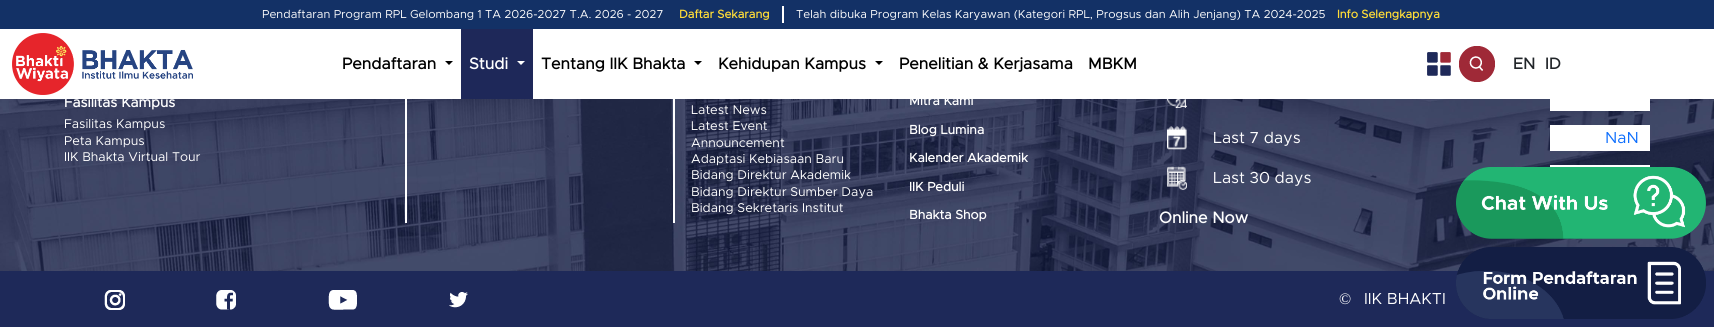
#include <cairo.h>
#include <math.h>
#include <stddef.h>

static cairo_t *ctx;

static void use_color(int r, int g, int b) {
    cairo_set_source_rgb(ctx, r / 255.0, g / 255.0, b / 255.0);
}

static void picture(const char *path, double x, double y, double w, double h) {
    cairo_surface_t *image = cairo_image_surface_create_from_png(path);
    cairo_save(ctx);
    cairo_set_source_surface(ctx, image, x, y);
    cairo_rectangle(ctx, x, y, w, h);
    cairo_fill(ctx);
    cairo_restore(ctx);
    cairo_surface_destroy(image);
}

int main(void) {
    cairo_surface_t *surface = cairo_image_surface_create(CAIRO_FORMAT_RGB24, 1714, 327);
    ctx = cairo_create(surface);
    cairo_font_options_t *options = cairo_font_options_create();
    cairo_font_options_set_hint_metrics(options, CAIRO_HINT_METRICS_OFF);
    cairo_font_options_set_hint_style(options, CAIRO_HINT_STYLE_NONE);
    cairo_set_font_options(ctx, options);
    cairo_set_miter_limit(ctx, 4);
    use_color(255, 255, 255);
    cairo_paint(ctx);
    use_color(19, 49, 102);
    cairo_rectangle(ctx, 0, 0, 1714, 29);
    cairo_fill(ctx);
    cairo_select_font_face(ctx, "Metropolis", CAIRO_FONT_SLANT_NORMAL, CAIRO_FONT_WEIGHT_NORMAL);
    cairo_set_font_size(ctx, 11.6);
    use_color(255, 255, 255);
    cairo_move_to(ctx, 262, 18);
    cairo_show_text(ctx, "Pendaftaran Program RPL Gelombang 1 TA 2026-2027 T.A. 2026 - 2027");
    cairo_select_font_face(ctx, "Metropolis", CAIRO_FONT_SLANT_NORMAL, CAIRO_FONT_WEIGHT_BOLD);
    use_color(255, 221, 55);
    cairo_move_to(ctx, 679, 18);
    cairo_show_text(ctx, "Daftar Sekarang");
    use_color(255, 255, 255);
    cairo_rectangle(ctx, 782, 6, 2, 17);
    cairo_fill(ctx);
    cairo_select_font_face(ctx, "Metropolis", CAIRO_FONT_SLANT_NORMAL, CAIRO_FONT_WEIGHT_NORMAL);
    cairo_move_to(ctx, 796, 18);
    cairo_show_text(ctx, "Telah dibuka Program Kelas Karyawan (Kategori RPL, Progsus dan Alih Jenjang) TA 2024-2025");
    cairo_select_font_face(ctx, "Metropolis", CAIRO_FONT_SLANT_NORMAL, CAIRO_FONT_WEIGHT_BOLD);
    use_color(255, 221, 55);
    cairo_move_to(ctx, 1337, 18);
    cairo_show_text(ctx, "Info Selengkapnya");
    picture("img1.png", 12, 33, 181, 62);
    cairo_set_font_size(ctx, 16);
    use_color(0, 0, 0);
    cairo_move_to(ctx, 342, 69);
    cairo_show_text(ctx, "Pendaftaran");
    cairo_new_path(ctx);
    cairo_move_to(ctx, 445, 61);
    cairo_line_to(ctx, 453, 61);
    cairo_line_to(ctx, 449, 65);
    cairo_close_path(ctx);
    cairo_fill(ctx);
    use_color(30, 40, 89);
    cairo_rectangle(ctx, 461, 29, 72, 70);
    cairo_fill(ctx);
    use_color(255, 255, 255);
    cairo_move_to(ctx, 469, 69);
    cairo_show_text(ctx, "Studi");
    cairo_new_path(ctx);
    cairo_move_to(ctx, 517, 61);
    cairo_line_to(ctx, 525, 61);
    cairo_line_to(ctx, 521, 65);
    cairo_close_path(ctx);
    cairo_fill(ctx);
    use_color(0, 0, 0);
    cairo_move_to(ctx, 541, 69);
    cairo_show_text(ctx, "Tentang IIK Bhakta");
    cairo_new_path(ctx);
    cairo_move_to(ctx, 694, 61);
    cairo_line_to(ctx, 702, 61);
    cairo_line_to(ctx, 698, 65);
    cairo_close_path(ctx);
    cairo_fill(ctx);
    cairo_move_to(ctx, 718, 69);
    cairo_show_text(ctx, "Kehidupan Kampus");
    cairo_new_path(ctx);
    cairo_move_to(ctx, 875, 61);
    cairo_line_to(ctx, 883, 61);
    cairo_line_to(ctx, 879, 65);
    cairo_close_path(ctx);
    cairo_fill(ctx);
    cairo_move_to(ctx, 899, 69);
    cairo_show_text(ctx, "Penelitian & Kerjasama");
    cairo_move_to(ctx, 1088, 69);
    cairo_show_text(ctx, "MBKM");
    picture("img2.png", 1427, 52, 24, 24);
    picture("img3.png", 1459, 46, 36, 36);
    use_color(33, 37, 41);
    cairo_move_to(ctx, 1513, 69);
    cairo_show_text(ctx, "EN");
    cairo_move_to(ctx, 1545, 69);
    cairo_show_text(ctx, "ID");
    picture("img4.png", 0, 99, 1714, 172);
    cairo_set_font_size(ctx, 14);
    use_color(255, 255, 255);
    cairo_move_to(ctx, 64, 107);
    cairo_show_text(ctx, "Fasilitas Kampus");
    cairo_select_font_face(ctx, "Metropolis", CAIRO_FONT_SLANT_NORMAL, CAIRO_FONT_WEIGHT_NORMAL);
    cairo_set_font_size(ctx, 12.75);
    cairo_move_to(ctx, 64, 128);
    cairo_show_text(ctx, "Fasilitas Kampus");
    cairo_move_to(ctx, 64, 145);
    cairo_show_text(ctx, "Peta Kampus");
    cairo_move_to(ctx, 64, 161);
    cairo_show_text(ctx, "IIK Bhakta Virtual Tour");
    cairo_rectangle(ctx, 405, 99, 2, 124);
    cairo_fill(ctx);
    cairo_rectangle(ctx, 673, 99, 2, 124);
    cairo_fill(ctx);
    cairo_move_to(ctx, 691, 114);
    cairo_show_text(ctx, "Latest News");
    cairo_move_to(ctx, 691, 130);
    cairo_show_text(ctx, "Latest Event");
    cairo_move_to(ctx, 691, 147);
    cairo_show_text(ctx, "Announcement");
    cairo_move_to(ctx, 691, 163);
    cairo_show_text(ctx, "Adaptasi Kebiasaan Baru");
    cairo_move_to(ctx, 691, 179);
    cairo_show_text(ctx, "Bidang Direktur Akademik");
    cairo_move_to(ctx, 691, 196);
    cairo_show_text(ctx, "Bidang Direktur Sumber Daya");
    cairo_move_to(ctx, 691, 212);
    cairo_show_text(ctx, "Bidang Sekretaris Institut");
    cairo_select_font_face(ctx, "Metropolis", CAIRO_FONT_SLANT_NORMAL, CAIRO_FONT_WEIGHT_BOLD);
    cairo_move_to(ctx, 909, 105);
    cairo_show_text(ctx, "Mitra Kami");
    cairo_move_to(ctx, 909, 134);
    cairo_show_text(ctx, "Blog Lumina");
    cairo_move_to(ctx, 909, 162);
    cairo_show_text(ctx, "Kalender Akademik");
    cairo_move_to(ctx, 909, 191);
    cairo_show_text(ctx, "IIK Peduli");
    cairo_move_to(ctx, 909, 219);
    cairo_show_text(ctx, "Bhakta Shop");
    picture("img5.png", 1167, 99, 20, 9);
    cairo_rectangle(ctx, 1550, 99, 100, 12);
    cairo_fill(ctx);
    picture("img6.png", 1167, 126, 20, 24);
    cairo_select_font_face(ctx, "Metropolis", CAIRO_FONT_SLANT_NORMAL, CAIRO_FONT_WEIGHT_NORMAL);
    cairo_set_font_size(ctx, 16);
    cairo_move_to(ctx, 1213, 143);
    cairo_show_text(ctx, "Last 7 days");
    cairo_rectangle(ctx, 1550, 125, 100, 26);
    cairo_fill(ctx);
    use_color(13, 110, 253);
    cairo_move_to(ctx, 1605, 143);
    cairo_show_text(ctx, "NaN");
    picture("img7.png", 1167, 166, 20, 24);
    use_color(255, 255, 255);
    cairo_move_to(ctx, 1213, 183);
    cairo_show_text(ctx, "Last 30 days");
    cairo_rectangle(ctx, 1550, 165, 100, 2);
    cairo_fill(ctx);
    cairo_select_font_face(ctx, "Metropolis", CAIRO_FONT_SLANT_NORMAL, CAIRO_FONT_WEIGHT_BOLD);
    cairo_move_to(ctx, 1159, 223);
    cairo_show_text(ctx, "Online Now");
    use_color(30, 41, 89);
    cairo_rectangle(ctx, 0, 271, 1714, 56);
    cairo_fill(ctx);
    picture("img8.png", 104, 290, 21, 20);
    picture("img9.png", 216, 290, 20, 20);
    picture("img10.png", 328, 290, 29, 20);
    picture("img11.png", 449, 292, 19, 16);
    cairo_select_font_face(ctx, "Liberation Serif", CAIRO_FONT_SLANT_NORMAL, CAIRO_FONT_WEIGHT_NORMAL);
    use_color(255, 255, 255);
    cairo_move_to(ctx, 1339, 304);
    cairo_show_text(ctx, "©");
    cairo_select_font_face(ctx, "Metropolis", CAIRO_FONT_SLANT_NORMAL, CAIRO_FONT_WEIGHT_NORMAL);
    cairo_move_to(ctx, 1364, 304);
    cairo_show_text(ctx, "IIK BHAKTI");
    picture("img12.png", 1456, 167, 250, 72);
    picture("img13.png", 1456, 247, 250, 72);
    cairo_surface_write_to_png(surface, "result.png");
    cairo_font_options_destroy(options);
    cairo_destroy(ctx);
    cairo_surface_destroy(surface);
    return 0;
}
